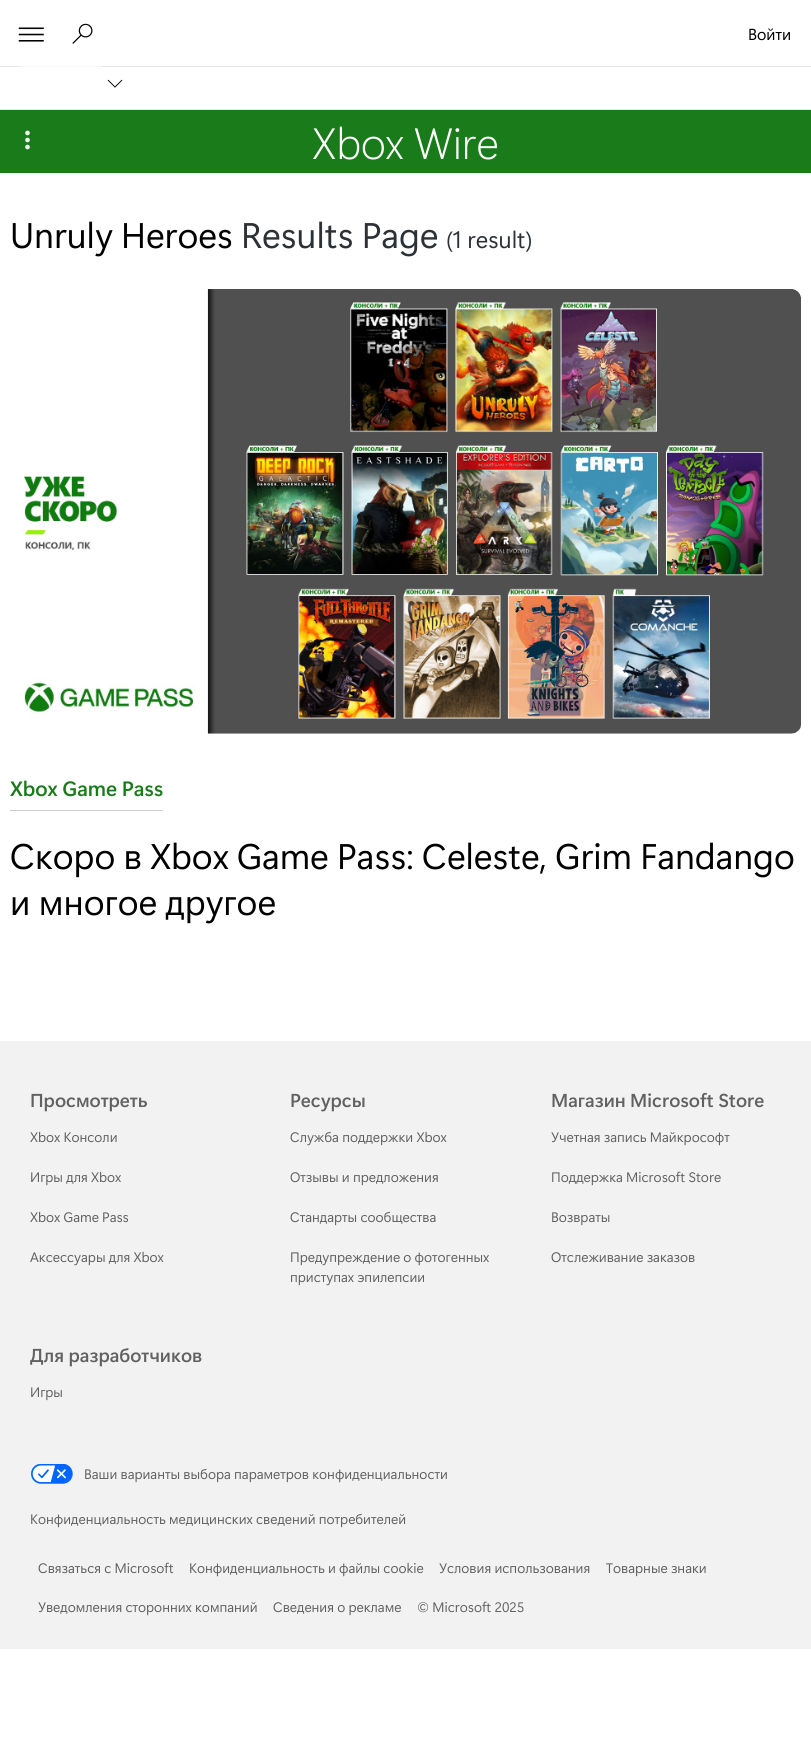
#include <cairo.h>
#include <math.h>
#include <stddef.h>

static cairo_t *ctx;

static void use_color(int r, int g, int b) {
    cairo_set_source_rgb(ctx, r / 255.0, g / 255.0, b / 255.0);
}

static void picture(const char *path, double x, double y, double w, double h) {
    cairo_surface_t *image = cairo_image_surface_create_from_png(path);
    cairo_save(ctx);
    cairo_set_source_surface(ctx, image, x, y);
    cairo_rectangle(ctx, x, y, w, h);
    cairo_fill(ctx);
    cairo_restore(ctx);
    cairo_surface_destroy(image);
}

int main(void) {
    cairo_surface_t *surface = cairo_image_surface_create(CAIRO_FORMAT_RGB24, 811, 1738);
    ctx = cairo_create(surface);
    cairo_font_options_t *options = cairo_font_options_create();
    cairo_font_options_set_hint_metrics(options, CAIRO_HINT_METRICS_OFF);
    cairo_font_options_set_hint_style(options, CAIRO_HINT_STYLE_NONE);
    cairo_set_font_options(ctx, options);
    cairo_set_miter_limit(ctx, 4);
    use_color(255, 255, 255);
    cairo_paint(ctx);
    use_color(230, 230, 230);
    cairo_rectangle(ctx, 0, 66, 811, 1);
    cairo_fill(ctx);
    picture("img1.png", 18, 27, 26, 15);
    picture("img2.png", 72, 23, 21, 21);
    cairo_select_font_face(ctx, "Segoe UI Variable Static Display", CAIRO_FONT_SLANT_NORMAL, CAIRO_FONT_WEIGHT_NORMAL);
    cairo_set_font_size(ctx, 16);
    use_color(0, 0, 0);
    cairo_move_to(ctx, 748, 40);
    cairo_show_text(ctx, "Войти");
    use_color(230, 230, 230);
    cairo_rectangle(ctx, 0, 109, 811, 1);
    cairo_fill(ctx);
    picture("img3.png", 20, 66, 82, 1);
    picture("img4.png", 107, 79, 16, 9);
    use_color(25, 123, 26);
    cairo_rectangle(ctx, 0, 110, 811, 63);
    cairo_fill(ctx);
    picture("img5.png", 25, 130, 5, 20);
    cairo_select_font_face(ctx, "Segoe UI Variable Static Display Light", CAIRO_FONT_SLANT_NORMAL, CAIRO_FONT_WEIGHT_NORMAL);
    cairo_set_font_size(ctx, 43.75);
    use_color(255, 255, 255);
    cairo_move_to(ctx, 312, 159);
    cairo_show_text(ctx, "Xbox Wire");
    cairo_select_font_face(ctx, "Segoe UI Variable Static Display", CAIRO_FONT_SLANT_NORMAL, CAIRO_FONT_WEIGHT_NORMAL);
    cairo_set_font_size(ctx, 35.6);
    use_color(0, 0, 0);
    cairo_move_to(ctx, 10, 248);
    cairo_show_text(ctx, "Unruly Heroes");
    use_color(44, 49, 54);
    cairo_move_to(ctx, 241, 248);
    cairo_show_text(ctx, "Results Page");
    cairo_set_font_size(ctx, 23.5);
    cairo_move_to(ctx, 446, 248);
    cairo_show_text(ctx, "(1 result)");
    picture("img6.png", 23, 289, 778, 445);
    use_color(204, 204, 204);
    cairo_rectangle(ctx, 10, 810, 153, 1);
    cairo_fill(ctx);
    cairo_select_font_face(ctx, "Segoe UI Variable Static Display SemiBold", CAIRO_FONT_SLANT_NORMAL, CAIRO_FONT_WEIGHT_NORMAL);
    cairo_set_font_size(ctx, 20.75);
    use_color(25, 123, 26);
    cairo_move_to(ctx, 10, 796);
    cairo_show_text(ctx, "Xbox Game Pass");
    cairo_select_font_face(ctx, "Segoe UI Variable Static Display", CAIRO_FONT_SLANT_NORMAL, CAIRO_FONT_WEIGHT_NORMAL);
    cairo_set_font_size(ctx, 35.6);
    use_color(0, 0, 0);
    cairo_move_to(ctx, 10, 869);
    cairo_show_text(ctx, "Скоро в Xbox Game Pass: Celeste, Grim Fandango");
    cairo_move_to(ctx, 10, 915);
    cairo_show_text(ctx, "и многое другое");
    use_color(242, 242, 242);
    cairo_rectangle(ctx, 0, 1041, 811, 608);
    cairo_fill(ctx);
    cairo_select_font_face(ctx, "Segoe UI Variable Static Display SemiBold", CAIRO_FONT_SLANT_NORMAL, CAIRO_FONT_WEIGHT_NORMAL);
    cairo_set_font_size(ctx, 18.75);
    use_color(97, 97, 97);
    cairo_move_to(ctx, 30, 1107);
    cairo_show_text(ctx, "Просмотреть");
    cairo_select_font_face(ctx, "Segoe UI Variable Static Display", CAIRO_FONT_SLANT_NORMAL, CAIRO_FONT_WEIGHT_NORMAL);
    cairo_set_font_size(ctx, 13.75);
    cairo_move_to(ctx, 30, 1142);
    cairo_show_text(ctx, "Xbox Консоли");
    cairo_move_to(ctx, 30, 1182);
    cairo_show_text(ctx, "Игры для Xbox");
    cairo_move_to(ctx, 30, 1222);
    cairo_show_text(ctx, "Xbox Game Pass");
    cairo_move_to(ctx, 30, 1262);
    cairo_show_text(ctx, "Аксессуары для Xbox");
    cairo_select_font_face(ctx, "Segoe UI Variable Static Display SemiBold", CAIRO_FONT_SLANT_NORMAL, CAIRO_FONT_WEIGHT_NORMAL);
    cairo_set_font_size(ctx, 18.75);
    cairo_move_to(ctx, 290, 1107);
    cairo_show_text(ctx, "Ресурсы");
    cairo_select_font_face(ctx, "Segoe UI Variable Static Display", CAIRO_FONT_SLANT_NORMAL, CAIRO_FONT_WEIGHT_NORMAL);
    cairo_set_font_size(ctx, 13.75);
    cairo_move_to(ctx, 290, 1142);
    cairo_show_text(ctx, "Служба поддержки Xbox");
    cairo_move_to(ctx, 290, 1182);
    cairo_show_text(ctx, "Отзывы и предложения");
    cairo_move_to(ctx, 290, 1222);
    cairo_show_text(ctx, "Стандарты сообщества");
    cairo_move_to(ctx, 290, 1262);
    cairo_show_text(ctx, "Предупреждение о фотогенных");
    cairo_move_to(ctx, 290, 1282);
    cairo_show_text(ctx, "приступах эпилепсии");
    cairo_select_font_face(ctx, "Segoe UI Variable Static Display SemiBold", CAIRO_FONT_SLANT_NORMAL, CAIRO_FONT_WEIGHT_NORMAL);
    cairo_set_font_size(ctx, 18.75);
    cairo_move_to(ctx, 551, 1107);
    cairo_show_text(ctx, "Магазин Microsoft Store");
    cairo_select_font_face(ctx, "Segoe UI Variable Static Display", CAIRO_FONT_SLANT_NORMAL, CAIRO_FONT_WEIGHT_NORMAL);
    cairo_set_font_size(ctx, 13.75);
    cairo_move_to(ctx, 551, 1142);
    cairo_show_text(ctx, "Учетная запись Майкрософт");
    cairo_move_to(ctx, 551, 1182);
    cairo_show_text(ctx, "Поддержка Microsoft Store");
    cairo_move_to(ctx, 551, 1222);
    cairo_show_text(ctx, "Возвраты");
    cairo_move_to(ctx, 551, 1262);
    cairo_show_text(ctx, "Отслеживание заказов");
    cairo_select_font_face(ctx, "Segoe UI Variable Static Display SemiBold", CAIRO_FONT_SLANT_NORMAL, CAIRO_FONT_WEIGHT_NORMAL);
    cairo_set_font_size(ctx, 18.75);
    cairo_move_to(ctx, 30, 1362);
    cairo_show_text(ctx, "Для разработчиков");
    cairo_select_font_face(ctx, "Segoe UI Variable Static Display", CAIRO_FONT_SLANT_NORMAL, CAIRO_FONT_WEIGHT_NORMAL);
    cairo_set_font_size(ctx, 13.75);
    cairo_move_to(ctx, 30, 1397);
    cairo_show_text(ctx, "Игры");
    picture("img7.png", 31, 1464, 42, 20);
    cairo_move_to(ctx, 84, 1479);
    cairo_show_text(ctx, "Ваши варианты выбора параметров конфиденциальности");
    cairo_move_to(ctx, 30, 1524);
    cairo_show_text(ctx, "Конфиденциальность медицинских сведений потребителей");
    cairo_move_to(ctx, 38, 1573);
    cairo_show_text(ctx, "Связаться с Microsoft");
    cairo_move_to(ctx, 189, 1573);
    cairo_show_text(ctx, "Конфиденциальность и файлы cookie");
    cairo_move_to(ctx, 439, 1573);
    cairo_show_text(ctx, "Условия использования");
    cairo_move_to(ctx, 606, 1573);
    cairo_show_text(ctx, "Товарные знаки");
    cairo_move_to(ctx, 38, 1612);
    cairo_show_text(ctx, "Уведомления сторонних компаний");
    cairo_move_to(ctx, 273, 1612);
    cairo_show_text(ctx, "Сведения о рекламе");
    cairo_move_to(ctx, 417, 1612);
    cairo_show_text(ctx, "© Microsoft 2025");
    cairo_surface_write_to_png(surface, "result.png");
    cairo_font_options_destroy(options);
    cairo_destroy(ctx);
    cairo_surface_destroy(surface);
    return 0;
}
